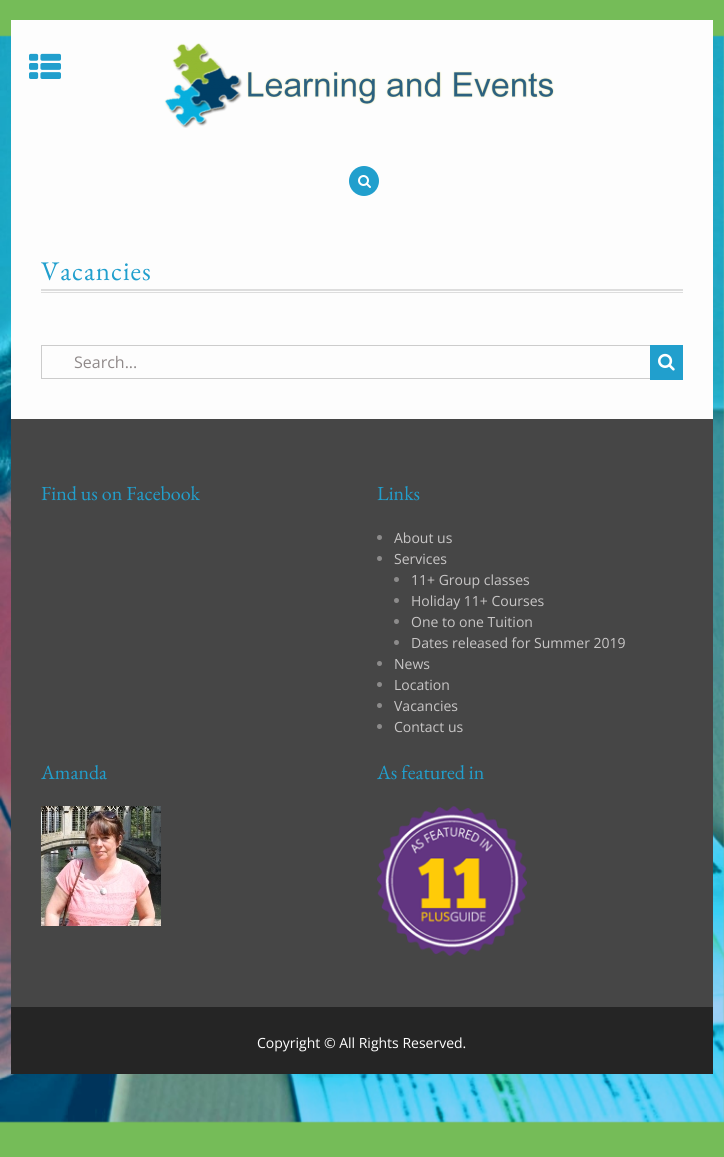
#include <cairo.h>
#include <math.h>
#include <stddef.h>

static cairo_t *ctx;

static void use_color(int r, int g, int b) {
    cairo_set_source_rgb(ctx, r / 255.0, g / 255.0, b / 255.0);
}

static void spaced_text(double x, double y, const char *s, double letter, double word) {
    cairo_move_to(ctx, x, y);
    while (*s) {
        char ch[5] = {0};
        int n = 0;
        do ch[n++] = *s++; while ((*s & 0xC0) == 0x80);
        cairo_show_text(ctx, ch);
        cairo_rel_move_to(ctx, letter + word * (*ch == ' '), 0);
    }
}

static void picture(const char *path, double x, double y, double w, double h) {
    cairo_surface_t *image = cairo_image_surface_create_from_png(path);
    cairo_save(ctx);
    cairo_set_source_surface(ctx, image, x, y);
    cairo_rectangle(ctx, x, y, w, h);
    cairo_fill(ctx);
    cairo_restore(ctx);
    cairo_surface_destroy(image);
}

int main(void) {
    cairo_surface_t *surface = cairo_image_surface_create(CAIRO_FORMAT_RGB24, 724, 1157);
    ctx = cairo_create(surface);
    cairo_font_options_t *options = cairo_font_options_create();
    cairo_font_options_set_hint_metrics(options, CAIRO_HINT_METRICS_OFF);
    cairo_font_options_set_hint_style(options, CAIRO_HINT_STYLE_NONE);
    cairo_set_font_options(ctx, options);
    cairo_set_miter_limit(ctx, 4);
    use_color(117, 188, 88);
    cairo_paint(ctx);
    picture("img1.png", 0, 35, 724, 1088);
    use_color(253, 253, 253);
    cairo_rectangle(ctx, 11, 20, 702, 399);
    cairo_fill(ctx);
    picture("img2.png", 29, 53, 32, 26);
    picture("img3.png", 164, 43, 391, 85);
    use_color(33, 159, 205);
    cairo_arc(ctx, 364, 181, 15, 0, 2 * M_PI);
    cairo_fill(ctx);
    picture("img4.png", 358, 175, 13, 13);
    use_color(221, 221, 221);
    cairo_rectangle(ctx, 41, 292, 642, 1);
    cairo_fill(ctx);
    cairo_select_font_face(ctx, "EB Garamond", CAIRO_FONT_SLANT_NORMAL, CAIRO_FONT_WEIGHT_NORMAL);
    cairo_set_font_size(ctx, 27);
    use_color(33, 159, 205);
    spaced_text(41, 280, "Vacancies", 1, 0);
    use_color(221, 221, 221);
    cairo_rectangle(ctx, 41, 289, 642, 2);
    cairo_fill(ctx);
    cairo_rectangle(ctx, 41.5, 345.5, 635, 33);
    use_color(204, 204, 204);
    cairo_set_line_width(ctx, 1);
    cairo_stroke(ctx);
    cairo_select_font_face(ctx, "Open Sans", CAIRO_FONT_SLANT_NORMAL, CAIRO_FONT_WEIGHT_NORMAL);
    cairo_set_font_size(ctx, 16);
    use_color(143, 137, 137);
    cairo_move_to(ctx, 74, 368);
    cairo_show_text(ctx, "Search...");
    use_color(33, 159, 205);
    cairo_rectangle(ctx, 650, 345, 33, 35);
    cairo_fill(ctx);
    picture("img5.png", 658, 353, 17, 18);
    use_color(70, 70, 70);
    cairo_rectangle(ctx, 11, 419, 702, 588);
    cairo_fill(ctx);
    cairo_select_font_face(ctx, "EB Garamond", CAIRO_FONT_SLANT_NORMAL, CAIRO_FONT_WEIGHT_NORMAL);
    cairo_set_font_size(ctx, 20);
    use_color(33, 159, 205);
    cairo_move_to(ctx, 41, 500);
    cairo_show_text(ctx, "Find us on Facebook");
    cairo_move_to(ctx, 377, 500);
    cairo_show_text(ctx, "Links");
    use_color(140, 139, 139);
    cairo_new_path(ctx);
    cairo_arc(ctx, 379.5, 537.5, 2.5, 0, 2 * M_PI);
    cairo_fill(ctx);
    cairo_select_font_face(ctx, "Open Sans", CAIRO_FONT_SLANT_NORMAL, CAIRO_FONT_WEIGHT_NORMAL);
    cairo_set_font_size(ctx, 14);
    use_color(200, 198, 198);
    cairo_move_to(ctx, 394, 543);
    cairo_show_text(ctx, "About us");
    use_color(140, 139, 139);
    cairo_new_path(ctx);
    cairo_arc(ctx, 379.5, 558.5, 2.5, 0, 2 * M_PI);
    cairo_fill(ctx);
    use_color(200, 198, 198);
    cairo_move_to(ctx, 394, 564);
    cairo_show_text(ctx, "Services");
    use_color(140, 139, 139);
    cairo_new_path(ctx);
    cairo_arc(ctx, 396.5, 579.5, 2.5, 0, 2 * M_PI);
    cairo_fill(ctx);
    use_color(200, 198, 198);
    cairo_move_to(ctx, 411, 585);
    cairo_show_text(ctx, "11+ Group classes");
    use_color(140, 139, 139);
    cairo_new_path(ctx);
    cairo_arc(ctx, 396.5, 600.5, 2.5, 0, 2 * M_PI);
    cairo_fill(ctx);
    use_color(200, 198, 198);
    cairo_move_to(ctx, 411, 606);
    cairo_show_text(ctx, "Holiday 11+ Courses");
    use_color(140, 139, 139);
    cairo_new_path(ctx);
    cairo_arc(ctx, 396.5, 621.5, 2.5, 0, 2 * M_PI);
    cairo_fill(ctx);
    use_color(200, 198, 198);
    cairo_move_to(ctx, 411, 627);
    cairo_show_text(ctx, "One to one Tuition");
    use_color(140, 139, 139);
    cairo_new_path(ctx);
    cairo_arc(ctx, 396.5, 642.5, 2.5, 0, 2 * M_PI);
    cairo_fill(ctx);
    use_color(200, 198, 198);
    cairo_move_to(ctx, 411, 648);
    cairo_show_text(ctx, "Dates released for Summer 2019");
    use_color(140, 139, 139);
    cairo_new_path(ctx);
    cairo_arc(ctx, 379.5, 663.5, 2.5, 0, 2 * M_PI);
    cairo_fill(ctx);
    use_color(200, 198, 198);
    cairo_move_to(ctx, 394, 669);
    cairo_show_text(ctx, "News");
    use_color(140, 139, 139);
    cairo_new_path(ctx);
    cairo_arc(ctx, 379.5, 684.5, 2.5, 0, 2 * M_PI);
    cairo_fill(ctx);
    use_color(200, 198, 198);
    cairo_move_to(ctx, 394, 690);
    cairo_show_text(ctx, "Location");
    use_color(140, 139, 139);
    cairo_new_path(ctx);
    cairo_arc(ctx, 379.5, 705.5, 2.5, 0, 2 * M_PI);
    cairo_fill(ctx);
    use_color(200, 198, 198);
    cairo_move_to(ctx, 394, 711);
    cairo_show_text(ctx, "Vacancies");
    use_color(140, 139, 139);
    cairo_new_path(ctx);
    cairo_arc(ctx, 379.5, 726.5, 2.5, 0, 2 * M_PI);
    cairo_fill(ctx);
    use_color(200, 198, 198);
    cairo_move_to(ctx, 394, 732);
    cairo_show_text(ctx, "Contact us");
    cairo_select_font_face(ctx, "EB Garamond", CAIRO_FONT_SLANT_NORMAL, CAIRO_FONT_WEIGHT_NORMAL);
    cairo_set_font_size(ctx, 20);
    use_color(33, 159, 205);
    cairo_move_to(ctx, 41, 779);
    cairo_show_text(ctx, "Amanda");
    picture("img6.png", 41, 806, 120, 120);
    cairo_move_to(ctx, 377, 779);
    cairo_show_text(ctx, "As featured in");
    picture("img7.png", 377, 806, 150, 150);
    use_color(37, 37, 37);
    cairo_rectangle(ctx, 11, 1007, 702, 67);
    cairo_fill(ctx);
    cairo_select_font_face(ctx, "Open Sans", CAIRO_FONT_SLANT_NORMAL, CAIRO_FONT_WEIGHT_NORMAL);
    cairo_set_font_size(ctx, 14);
    use_color(255, 255, 255);
    cairo_move_to(ctx, 257, 1048);
    cairo_show_text(ctx, "Copyright © All Rights Reserved.");
    cairo_surface_write_to_png(surface, "result.png");
    cairo_font_options_destroy(options);
    cairo_destroy(ctx);
    cairo_surface_destroy(surface);
    return 0;
}
